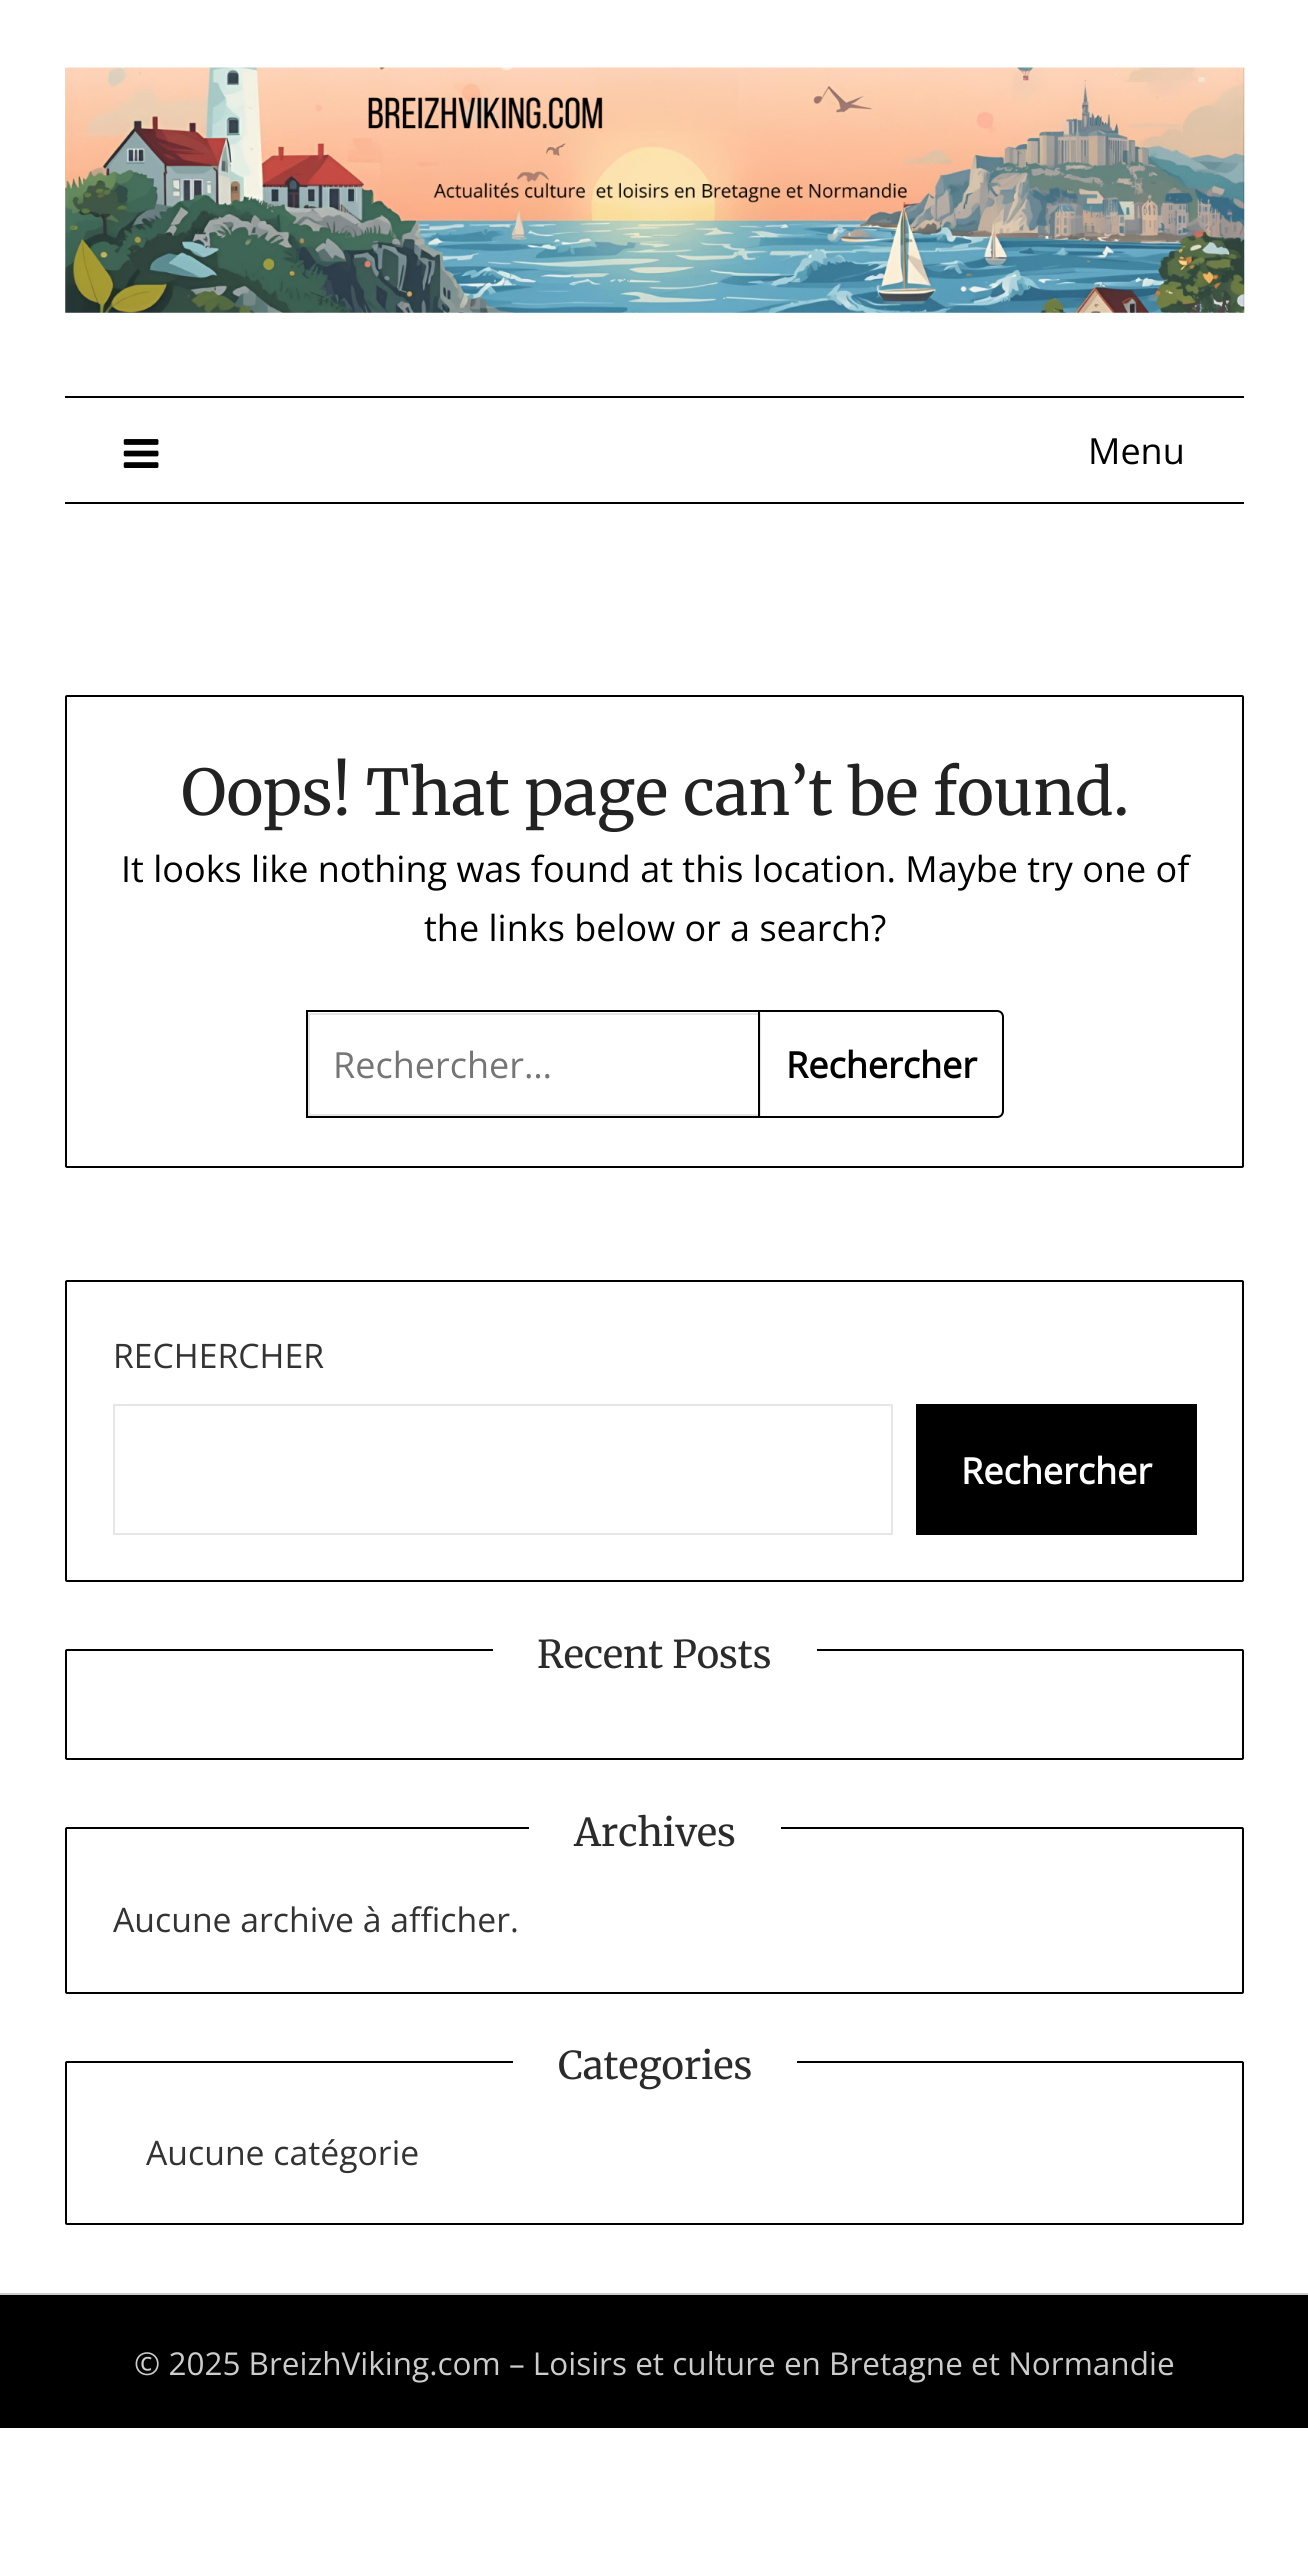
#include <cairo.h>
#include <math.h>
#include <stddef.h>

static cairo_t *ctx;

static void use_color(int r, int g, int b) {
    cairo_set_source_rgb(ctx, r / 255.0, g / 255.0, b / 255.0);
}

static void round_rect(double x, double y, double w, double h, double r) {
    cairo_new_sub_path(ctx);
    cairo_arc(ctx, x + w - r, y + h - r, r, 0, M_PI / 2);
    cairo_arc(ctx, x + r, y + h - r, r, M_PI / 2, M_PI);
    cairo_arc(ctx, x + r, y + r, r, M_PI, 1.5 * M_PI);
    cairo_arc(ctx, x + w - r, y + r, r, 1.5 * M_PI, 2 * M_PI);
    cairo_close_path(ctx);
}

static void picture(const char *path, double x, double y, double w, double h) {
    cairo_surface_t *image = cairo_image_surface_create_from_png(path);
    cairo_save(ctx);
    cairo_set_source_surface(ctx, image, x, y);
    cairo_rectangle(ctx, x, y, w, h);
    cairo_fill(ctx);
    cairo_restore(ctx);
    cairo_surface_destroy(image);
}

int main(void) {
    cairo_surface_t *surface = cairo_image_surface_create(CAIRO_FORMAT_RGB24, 1308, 2570);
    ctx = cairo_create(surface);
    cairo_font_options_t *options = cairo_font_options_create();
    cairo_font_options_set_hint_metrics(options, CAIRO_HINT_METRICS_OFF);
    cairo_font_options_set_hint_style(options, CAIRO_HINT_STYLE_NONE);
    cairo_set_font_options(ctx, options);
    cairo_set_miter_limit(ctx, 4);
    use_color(255, 255, 255);
    cairo_paint(ctx);
    picture("img1.png", 65, 67, 1180, 246);
    use_color(0, 0, 0);
    cairo_rectangle(ctx, 65, 396, 1179, 2);
    cairo_fill(ctx);
    cairo_rectangle(ctx, 65, 502, 1179, 2);
    cairo_fill(ctx);
    picture("img2.png", 123, 439, 36, 29);
    cairo_select_font_face(ctx, "Open Sans", CAIRO_FONT_SLANT_NORMAL, CAIRO_FONT_WEIGHT_NORMAL);
    cairo_set_font_size(ctx, 36);
    cairo_move_to(ctx, 1088, 464);
    cairo_show_text(ctx, "Menu");
    round_rect(66, 696, 1177, 471, 1);
    cairo_stroke(ctx);
    cairo_select_font_face(ctx, "Merriweather", CAIRO_FONT_SLANT_NORMAL, CAIRO_FONT_WEIGHT_NORMAL);
    cairo_set_font_size(ctx, 63);
    use_color(34, 34, 34);
    cairo_move_to(ctx, 181, 815);
    cairo_show_text(ctx, "Oops! That page can’t be found.");
    cairo_select_font_face(ctx, "Open Sans", CAIRO_FONT_SLANT_NORMAL, CAIRO_FONT_WEIGHT_NORMAL);
    cairo_set_font_size(ctx, 36);
    use_color(0, 0, 0);
    cairo_move_to(ctx, 121, 882);
    cairo_show_text(ctx, "It looks like nothing was found at this location. Maybe try one of");
    cairo_move_to(ctx, 424, 941);
    cairo_show_text(ctx, "the links below or a search?");
    cairo_rectangle(ctx, 306, 1010, 455, 2);
    cairo_fill(ctx);
    cairo_rectangle(ctx, 306, 1116, 455, 2);
    cairo_fill(ctx);
    cairo_rectangle(ctx, 306, 1010, 2, 108);
    cairo_fill(ctx);
    cairo_rectangle(ctx, 309, 1014, 451, 101);
    use_color(229, 230, 233);
    cairo_stroke(ctx);
    use_color(117, 117, 117);
    cairo_move_to(ctx, 333, 1078);
    cairo_show_text(ctx, "Rechercher…");
    cairo_new_path(ctx);
    cairo_move_to(ctx, 759, 1011);
    cairo_line_to(ctx, 997, 1011);
    cairo_curve_to(ctx, 1000.5, 1011, 1003, 1013.5, 1003, 1017);
    cairo_line_to(ctx, 1003, 1111);
    cairo_curve_to(ctx, 1003, 1114.5, 1000.5, 1117, 997, 1117);
    cairo_line_to(ctx, 759, 1117);
    cairo_close_path(ctx);
    use_color(0, 0, 0);
    cairo_stroke(ctx);
    cairo_select_font_face(ctx, "Open Sans", CAIRO_FONT_SLANT_NORMAL, CAIRO_FONT_WEIGHT_BOLD);
    cairo_move_to(ctx, 786, 1078);
    cairo_show_text(ctx, "Rechercher");
    round_rect(66, 1281, 1177, 300, 1);
    cairo_stroke(ctx);
    cairo_select_font_face(ctx, "Open Sans", CAIRO_FONT_SLANT_NORMAL, CAIRO_FONT_WEIGHT_NORMAL);
    cairo_set_font_size(ctx, 33.75);
    use_color(51, 51, 51);
    cairo_move_to(ctx, 113, 1368);
    cairo_show_text(ctx, "RECHERCHER");
    cairo_rectangle(ctx, 114, 1405, 778, 129);
    use_color(229, 230, 233);
    cairo_stroke(ctx);
    use_color(0, 0, 0);
    cairo_rectangle(ctx, 916, 1404, 281, 131);
    cairo_fill(ctx);
    cairo_select_font_face(ctx, "Open Sans", CAIRO_FONT_SLANT_NORMAL, CAIRO_FONT_WEIGHT_BOLD);
    cairo_set_font_size(ctx, 36);
    use_color(255, 255, 255);
    cairo_move_to(ctx, 961, 1484);
    cairo_show_text(ctx, "Rechercher");
    round_rect(66, 1650, 1177, 109, 1);
    use_color(0, 0, 0);
    cairo_stroke(ctx);
    use_color(255, 255, 255);
    cairo_rectangle(ctx, 493, 1649, 324, 2);
    cairo_fill(ctx);
    cairo_select_font_face(ctx, "Merriweather", CAIRO_FONT_SLANT_NORMAL, CAIRO_FONT_WEIGHT_NORMAL);
    cairo_set_font_size(ctx, 38.25);
    use_color(43, 43, 43);
    cairo_move_to(ctx, 537, 1668);
    cairo_show_text(ctx, "Recent Posts");
    round_rect(66, 1828, 1177, 165, 1);
    use_color(0, 0, 0);
    cairo_stroke(ctx);
    use_color(255, 255, 255);
    cairo_rectangle(ctx, 529, 1827, 252, 2);
    cairo_fill(ctx);
    use_color(43, 43, 43);
    cairo_move_to(ctx, 574, 1846);
    cairo_show_text(ctx, "Archives");
    cairo_select_font_face(ctx, "Open Sans", CAIRO_FONT_SLANT_NORMAL, CAIRO_FONT_WEIGHT_NORMAL);
    cairo_set_font_size(ctx, 33.75);
    use_color(51, 51, 51);
    cairo_move_to(ctx, 113, 1932);
    cairo_show_text(ctx, "Aucune archive à afficher.");
    round_rect(66, 2062, 1177, 162, 1);
    use_color(0, 0, 0);
    cairo_stroke(ctx);
    use_color(255, 255, 255);
    cairo_rectangle(ctx, 513, 2061, 284, 2);
    cairo_fill(ctx);
    cairo_select_font_face(ctx, "Merriweather", CAIRO_FONT_SLANT_NORMAL, CAIRO_FONT_WEIGHT_NORMAL);
    cairo_set_font_size(ctx, 38.25);
    use_color(43, 43, 43);
    cairo_move_to(ctx, 558, 2079);
    cairo_show_text(ctx, "Categories");
    cairo_select_font_face(ctx, "Open Sans", CAIRO_FONT_SLANT_NORMAL, CAIRO_FONT_WEIGHT_NORMAL);
    cairo_set_font_size(ctx, 33.75);
    use_color(51, 51, 51);
    cairo_move_to(ctx, 146, 2165);
    cairo_show_text(ctx, "Aucune catégorie");
    use_color(0, 0, 0);
    cairo_rectangle(ctx, 0, 2295, 1308, 133);
    cairo_fill(ctx);
    use_color(204, 204, 204);
    cairo_rectangle(ctx, 0, 2293, 1308, 2);
    cairo_fill(ctx);
    cairo_set_font_size(ctx, 31.5);
    cairo_move_to(ctx, 134, 2375);
    cairo_show_text(ctx, "© 2025 BreizhViking.com – Loisirs et culture en Bretagne et Normandie");
    cairo_surface_write_to_png(surface, "result.png");
    cairo_font_options_destroy(options);
    cairo_destroy(ctx);
    cairo_surface_destroy(surface);
    return 0;
}
